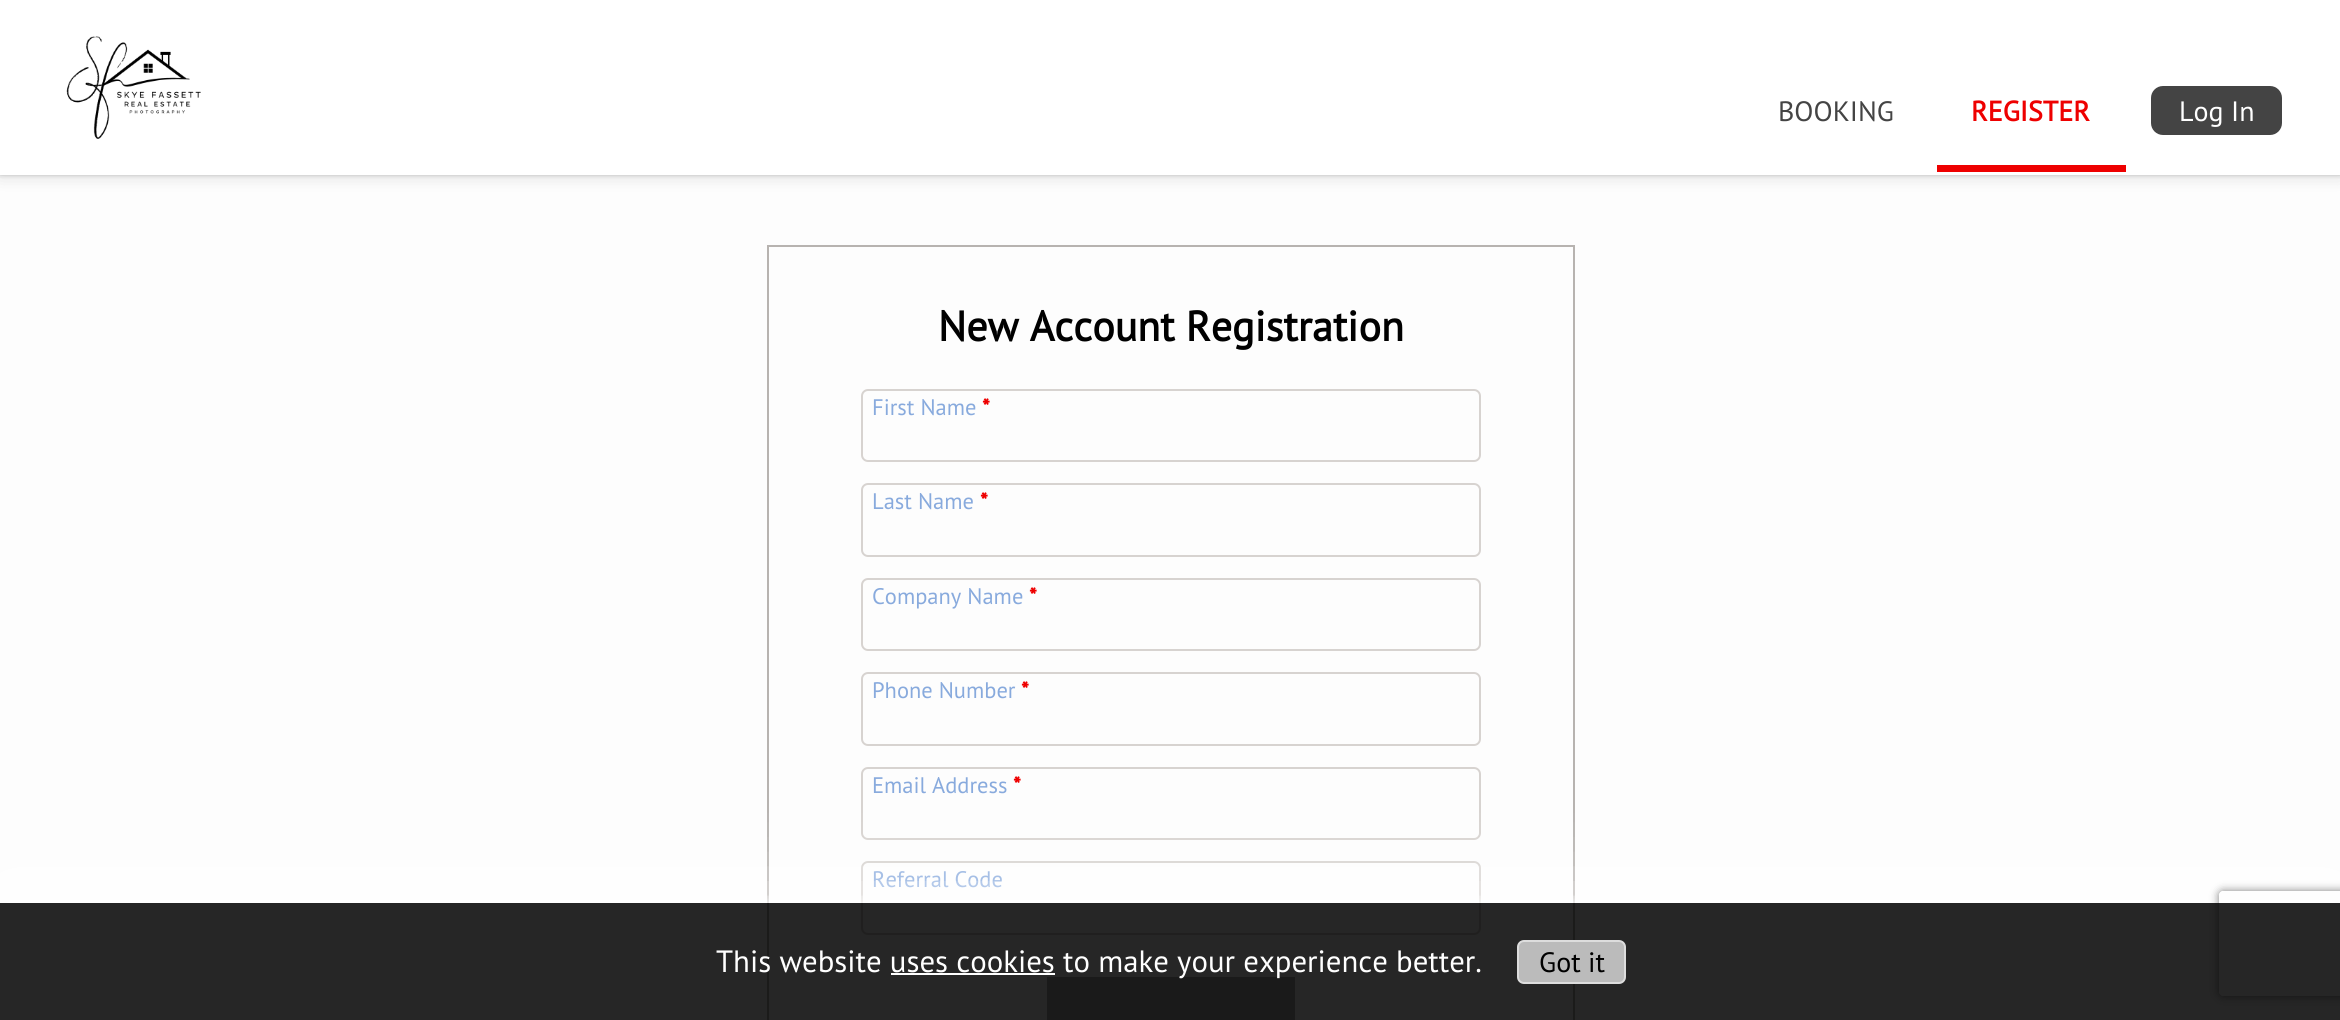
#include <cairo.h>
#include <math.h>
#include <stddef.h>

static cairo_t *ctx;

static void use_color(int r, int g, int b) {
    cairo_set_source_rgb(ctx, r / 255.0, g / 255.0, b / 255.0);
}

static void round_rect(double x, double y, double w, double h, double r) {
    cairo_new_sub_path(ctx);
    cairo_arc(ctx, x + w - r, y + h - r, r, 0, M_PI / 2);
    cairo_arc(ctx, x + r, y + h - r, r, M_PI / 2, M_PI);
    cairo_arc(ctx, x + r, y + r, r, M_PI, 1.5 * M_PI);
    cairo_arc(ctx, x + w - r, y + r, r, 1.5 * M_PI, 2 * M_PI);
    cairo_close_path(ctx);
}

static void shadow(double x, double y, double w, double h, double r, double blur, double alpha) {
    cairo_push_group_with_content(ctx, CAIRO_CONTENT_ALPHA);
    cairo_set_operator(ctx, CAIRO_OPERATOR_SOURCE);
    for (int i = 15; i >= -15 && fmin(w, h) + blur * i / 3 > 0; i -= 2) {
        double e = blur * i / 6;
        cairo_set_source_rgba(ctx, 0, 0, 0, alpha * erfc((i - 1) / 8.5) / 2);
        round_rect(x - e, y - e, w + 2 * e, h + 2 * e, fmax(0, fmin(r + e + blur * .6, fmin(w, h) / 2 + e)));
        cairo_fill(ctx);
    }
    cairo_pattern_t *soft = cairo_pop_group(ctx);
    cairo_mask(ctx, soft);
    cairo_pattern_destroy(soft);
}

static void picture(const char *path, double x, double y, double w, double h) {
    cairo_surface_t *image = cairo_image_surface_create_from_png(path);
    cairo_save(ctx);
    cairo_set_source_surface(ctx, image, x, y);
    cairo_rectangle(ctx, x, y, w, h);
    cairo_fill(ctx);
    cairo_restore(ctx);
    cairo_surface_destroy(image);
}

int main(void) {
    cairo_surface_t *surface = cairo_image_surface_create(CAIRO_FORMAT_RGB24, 2340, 1020);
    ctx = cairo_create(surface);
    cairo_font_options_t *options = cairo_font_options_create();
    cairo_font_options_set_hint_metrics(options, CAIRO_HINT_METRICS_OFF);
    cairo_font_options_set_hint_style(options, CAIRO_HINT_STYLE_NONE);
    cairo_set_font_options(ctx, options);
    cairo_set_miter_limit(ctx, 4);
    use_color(253, 253, 253);
    cairo_paint(ctx);
    use_color(0, 0, 0);
    shadow(0, 0, 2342, 175, 0, 2, 0.2);
    shadow(0, 0, 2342, 175, 0, 9, 0.15);
    use_color(255, 255, 255);
    cairo_rectangle(ctx, 0, 0, 2340, 175);
    cairo_fill(ctx);
    picture("img1.png", 66, 36, 135, 103);
    cairo_select_font_face(ctx, "PT Sans", CAIRO_FONT_SLANT_NORMAL, CAIRO_FONT_WEIGHT_NORMAL);
    cairo_set_font_size(ctx, 28);
    use_color(68, 68, 68);
    cairo_move_to(ctx, 1778, 121);
    cairo_show_text(ctx, "BOOKING");
    use_color(238, 0, 0);
    cairo_rectangle(ctx, 1937, 165, 189, 7);
    cairo_fill(ctx);
    cairo_select_font_face(ctx, "PT Sans", CAIRO_FONT_SLANT_NORMAL, CAIRO_FONT_WEIGHT_BOLD);
    cairo_move_to(ctx, 1971, 121);
    cairo_show_text(ctx, "REGISTER");
    use_color(68, 68, 68);
    round_rect(2151, 86, 131, 49, 12);
    cairo_fill(ctx);
    cairo_select_font_face(ctx, "PT Sans", CAIRO_FONT_SLANT_NORMAL, CAIRO_FONT_WEIGHT_NORMAL);
    use_color(255, 255, 255);
    cairo_move_to(ctx, 2179, 121);
    cairo_show_text(ctx, "Log In");
    cairo_rectangle(ctx, 768, 246, 806, 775);
    use_color(183, 179, 176);
    cairo_stroke(ctx);
    cairo_select_font_face(ctx, "PT Sans", CAIRO_FONT_SLANT_NORMAL, CAIRO_FONT_WEIGHT_BOLD);
    cairo_set_font_size(ctx, 42);
    use_color(0, 0, 0);
    cairo_move_to(ctx, 938, 341);
    cairo_show_text(ctx, "New Account Registration");
    round_rect(862, 390, 618, 71, 6);
    use_color(215, 211, 208);
    cairo_stroke(ctx);
    cairo_select_font_face(ctx, "PT Sans", CAIRO_FONT_SLANT_NORMAL, CAIRO_FONT_WEIGHT_NORMAL);
    cairo_set_font_size(ctx, 22.5);
    use_color(136, 170, 221);
    cairo_move_to(ctx, 872, 415);
    cairo_show_text(ctx, "First Name");
    cairo_select_font_face(ctx, "PT Sans", CAIRO_FONT_SLANT_NORMAL, CAIRO_FONT_WEIGHT_BOLD);
    use_color(238, 0, 0);
    cairo_move_to(ctx, 982, 415);
    cairo_show_text(ctx, "*");
    round_rect(862, 484, 618, 72, 6);
    use_color(215, 211, 208);
    cairo_stroke(ctx);
    cairo_select_font_face(ctx, "PT Sans", CAIRO_FONT_SLANT_NORMAL, CAIRO_FONT_WEIGHT_NORMAL);
    use_color(136, 170, 221);
    cairo_move_to(ctx, 872, 509);
    cairo_show_text(ctx, "Last Name");
    cairo_select_font_face(ctx, "PT Sans", CAIRO_FONT_SLANT_NORMAL, CAIRO_FONT_WEIGHT_BOLD);
    use_color(238, 0, 0);
    cairo_move_to(ctx, 980, 509);
    cairo_show_text(ctx, "*");
    round_rect(862, 579, 618, 71, 6);
    use_color(215, 211, 208);
    cairo_stroke(ctx);
    cairo_select_font_face(ctx, "PT Sans", CAIRO_FONT_SLANT_NORMAL, CAIRO_FONT_WEIGHT_NORMAL);
    use_color(136, 170, 221);
    cairo_move_to(ctx, 872, 604);
    cairo_show_text(ctx, "Company Name");
    cairo_select_font_face(ctx, "PT Sans", CAIRO_FONT_SLANT_NORMAL, CAIRO_FONT_WEIGHT_BOLD);
    use_color(238, 0, 0);
    cairo_move_to(ctx, 1029, 604);
    cairo_show_text(ctx, "*");
    round_rect(862, 673, 618, 72, 6);
    use_color(215, 211, 208);
    cairo_stroke(ctx);
    cairo_select_font_face(ctx, "PT Sans", CAIRO_FONT_SLANT_NORMAL, CAIRO_FONT_WEIGHT_NORMAL);
    use_color(136, 170, 221);
    cairo_move_to(ctx, 872, 698);
    cairo_show_text(ctx, "Phone Number");
    cairo_select_font_face(ctx, "PT Sans", CAIRO_FONT_SLANT_NORMAL, CAIRO_FONT_WEIGHT_BOLD);
    use_color(238, 0, 0);
    cairo_move_to(ctx, 1021, 698);
    cairo_show_text(ctx, "*");
    round_rect(862, 768, 618, 71, 6);
    use_color(215, 211, 208);
    cairo_stroke(ctx);
    cairo_select_font_face(ctx, "PT Sans", CAIRO_FONT_SLANT_NORMAL, CAIRO_FONT_WEIGHT_NORMAL);
    use_color(136, 170, 221);
    cairo_move_to(ctx, 872, 793);
    cairo_show_text(ctx, "Email Address");
    cairo_select_font_face(ctx, "PT Sans", CAIRO_FONT_SLANT_NORMAL, CAIRO_FONT_WEIGHT_BOLD);
    use_color(238, 0, 0);
    cairo_move_to(ctx, 1013, 793);
    cairo_show_text(ctx, "*");
    round_rect(862, 862, 618, 72, 6);
    use_color(215, 211, 208);
    cairo_stroke(ctx);
    cairo_select_font_face(ctx, "PT Sans", CAIRO_FONT_SLANT_NORMAL, CAIRO_FONT_WEIGHT_NORMAL);
    use_color(136, 170, 221);
    cairo_move_to(ctx, 872, 887);
    cairo_show_text(ctx, "Referral Code");
    use_color(177, 177, 177);
    cairo_rectangle(ctx, 1047, 977, 248, 43);
    cairo_fill(ctx);
    cairo_save(ctx);
    cairo_rectangle(ctx, 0, 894, 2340, 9);
    cairo_clip(ctx);
    use_color(255, 255, 255);
    shadow(0, 903, 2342, 117, 0, 4.5, 1);
    cairo_restore(ctx);
    cairo_save(ctx);
    cairo_rectangle(ctx, 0, 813, 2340, 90);
    cairo_clip(ctx);
    use_color(255, 255, 255);
    shadow(0, 903, 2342, 117, 0, 44, 1);
    cairo_restore(ctx);
    cairo_save(ctx);
    cairo_set_fill_rule(ctx, CAIRO_FILL_RULE_EVEN_ODD);
    cairo_new_path(ctx);
    cairo_move_to(ctx, 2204, 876);
    cairo_line_to(ctx, 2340, 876);
    cairo_line_to(ctx, 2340, 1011);
    cairo_line_to(ctx, 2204, 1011);
    cairo_close_path(ctx);
    cairo_move_to(ctx, 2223, 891);
    cairo_line_to(ctx, 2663, 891);
    cairo_curve_to(ctx, 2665, 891, 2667, 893, 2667, 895);
    cairo_line_to(ctx, 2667, 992);
    cairo_curve_to(ctx, 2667, 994, 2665, 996, 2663, 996);
    cairo_line_to(ctx, 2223, 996);
    cairo_curve_to(ctx, 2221, 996, 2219, 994, 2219, 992);
    cairo_line_to(ctx, 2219, 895);
    cairo_curve_to(ctx, 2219, 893, 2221, 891, 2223, 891);
    cairo_close_path(ctx);
    cairo_clip(ctx);
    use_color(128, 128, 128);
    shadow(2219, 891, 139, 105, 4, 4.5, 1);
    cairo_restore(ctx);
    cairo_set_source_rgba(ctx, 0, 0, 0, 0.85);
    cairo_rectangle(ctx, 0, 903, 2340, 117);
    cairo_fill(ctx);
    cairo_set_font_size(ctx, 30.8);
    use_color(255, 255, 255);
    cairo_move_to(ctx, 716, 972);
    cairo_show_text(ctx, "This website uses cookies to make your experience better.");
    use_color(187, 187, 187);
    round_rect(1518, 941, 107, 42, 6);
    cairo_fill_preserve(ctx);
    use_color(221, 221, 221);
    cairo_stroke(ctx);
    cairo_set_font_size(ctx, 28);
    use_color(0, 0, 0);
    cairo_move_to(ctx, 1539, 972);
    cairo_show_text(ctx, "Got it");
    use_color(255, 255, 255);
    cairo_rectangle(ctx, 891, 973, 164, 2);
    cairo_fill(ctx);
    cairo_surface_write_to_png(surface, "result.png");
    cairo_font_options_destroy(options);
    cairo_destroy(ctx);
    cairo_surface_destroy(surface);
    return 0;
}
